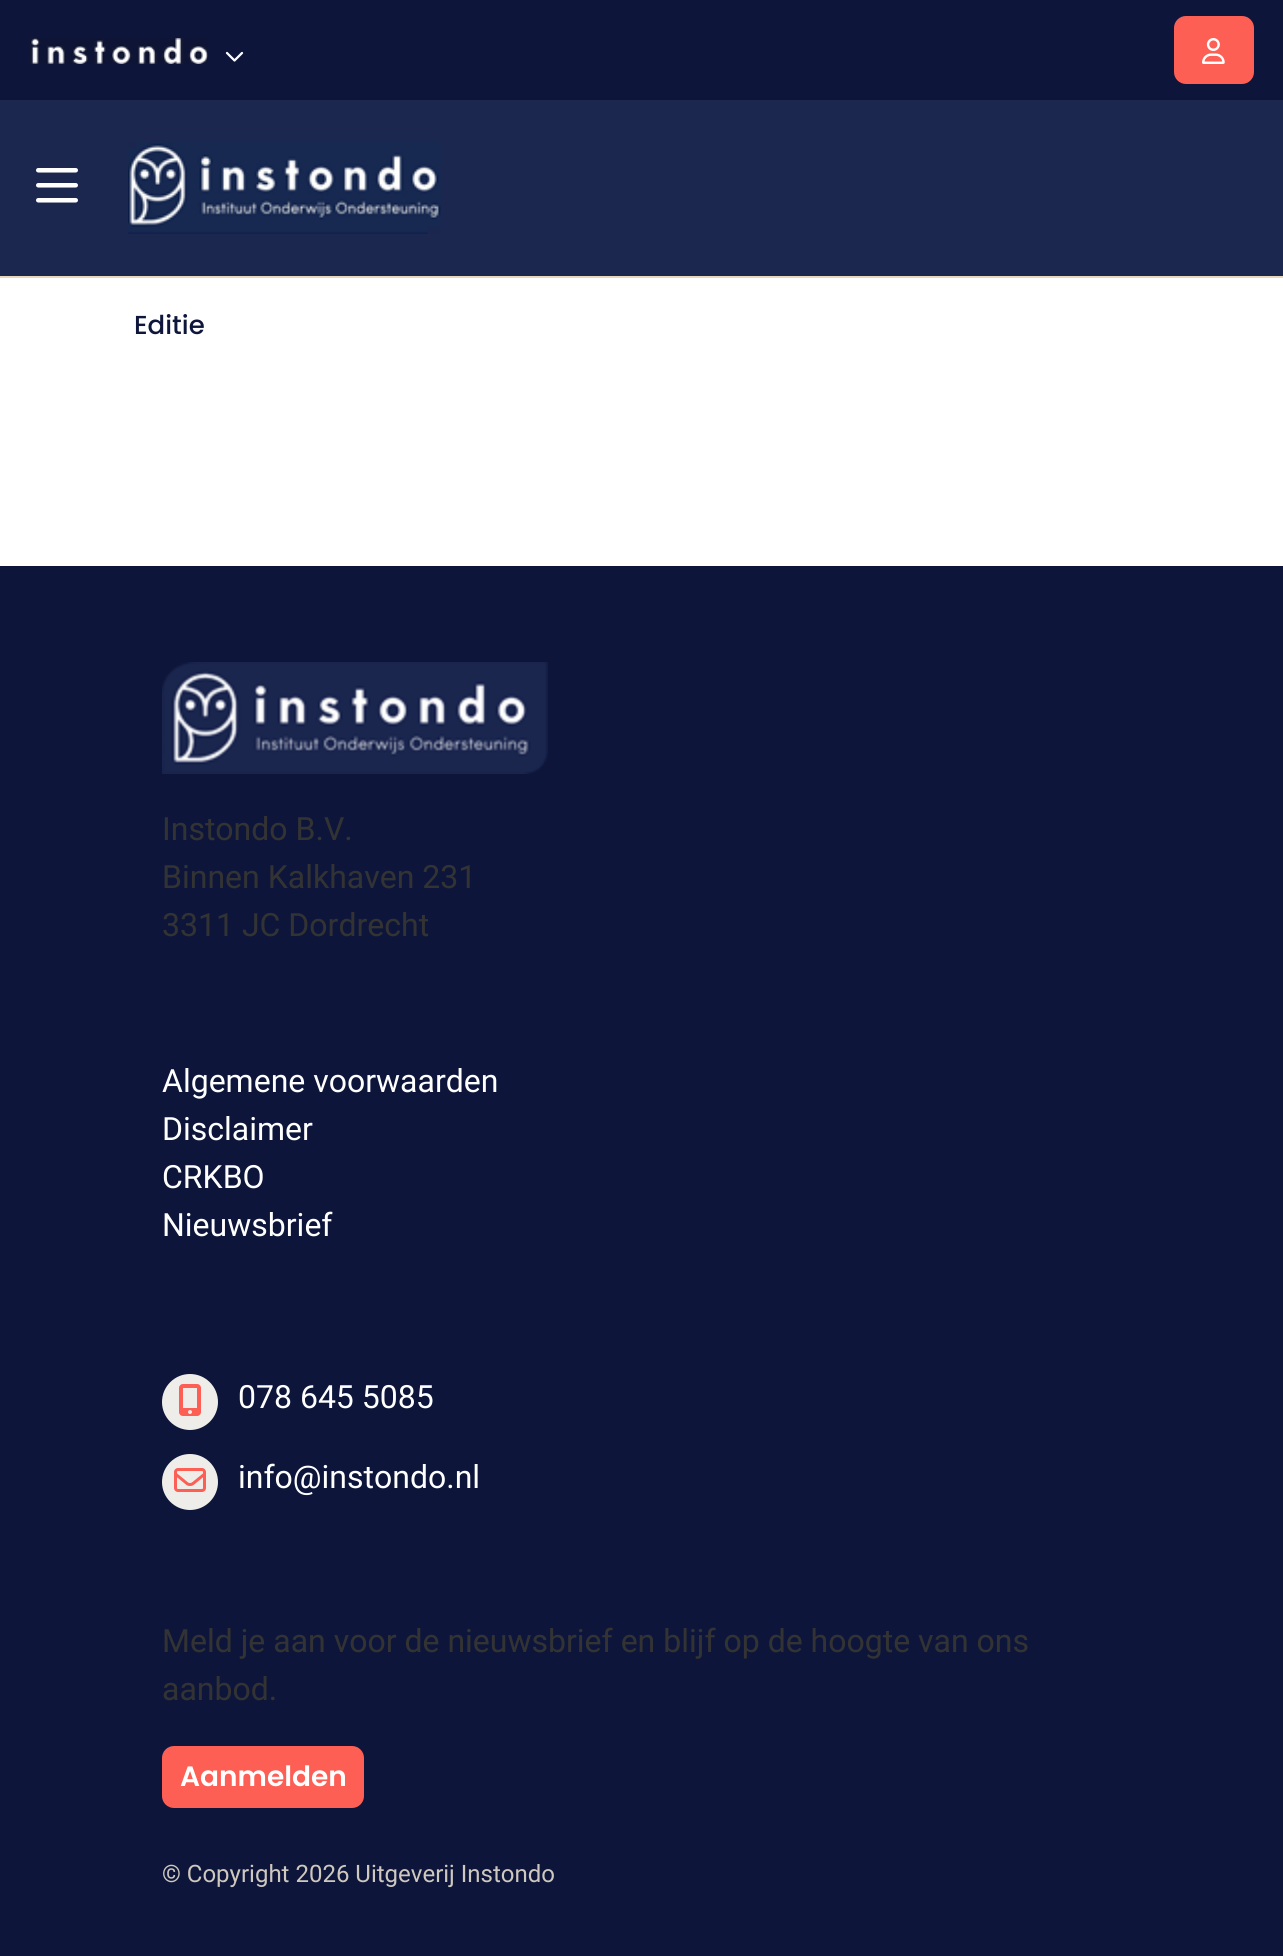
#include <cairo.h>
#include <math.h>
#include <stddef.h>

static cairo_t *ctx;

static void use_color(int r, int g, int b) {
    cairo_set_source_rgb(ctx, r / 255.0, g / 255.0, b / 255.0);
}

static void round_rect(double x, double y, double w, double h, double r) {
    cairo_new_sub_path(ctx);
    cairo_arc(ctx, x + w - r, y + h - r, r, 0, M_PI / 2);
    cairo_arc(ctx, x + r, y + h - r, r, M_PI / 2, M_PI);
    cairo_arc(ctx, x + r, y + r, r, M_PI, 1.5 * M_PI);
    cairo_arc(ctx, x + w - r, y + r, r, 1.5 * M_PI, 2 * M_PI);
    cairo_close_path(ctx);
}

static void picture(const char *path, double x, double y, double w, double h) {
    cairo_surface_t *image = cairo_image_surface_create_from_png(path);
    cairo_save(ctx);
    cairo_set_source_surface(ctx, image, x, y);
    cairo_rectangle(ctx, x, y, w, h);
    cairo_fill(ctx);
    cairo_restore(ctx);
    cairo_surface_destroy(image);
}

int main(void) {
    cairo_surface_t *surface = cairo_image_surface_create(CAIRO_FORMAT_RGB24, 1283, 1956);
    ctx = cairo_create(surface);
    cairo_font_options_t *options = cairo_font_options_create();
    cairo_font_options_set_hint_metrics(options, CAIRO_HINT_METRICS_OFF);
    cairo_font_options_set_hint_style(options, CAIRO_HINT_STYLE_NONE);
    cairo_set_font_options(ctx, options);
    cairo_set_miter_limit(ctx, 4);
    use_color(255, 255, 255);
    cairo_paint(ctx);
    use_color(13, 22, 58);
    cairo_rectangle(ctx, 0, 0, 1283, 100);
    cairo_fill(ctx);
    picture("img1.png", 30, 38, 178, 26);
    picture("img2.png", 225, 51, 19, 11);
    use_color(254, 95, 85);
    round_rect(1175, 17, 78, 66, 11);
    cairo_fill_preserve(ctx);
    cairo_stroke(ctx);
    picture("img3.png", 1202, 38, 23, 26);
    use_color(27, 39, 79);
    cairo_rectangle(ctx, 0, 100, 1283, 176);
    cairo_fill(ctx);
    use_color(232, 215, 185);
    cairo_rectangle(ctx, 0, 276, 1283, 2);
    cairo_fill(ctx);
    picture("img4.png", 36, 168, 42, 35);
    picture("img5.png", 128, 142, 313, 92);
    cairo_select_font_face(ctx, "Poppins Medium", CAIRO_FONT_SLANT_NORMAL, CAIRO_FONT_WEIGHT_NORMAL);
    cairo_set_font_size(ctx, 26);
    use_color(14, 22, 59);
    cairo_move_to(ctx, 134, 334);
    cairo_show_text(ctx, "Editie");
    use_color(13, 22, 58);
    cairo_rectangle(ctx, 0, 566, 1283, 1390);
    cairo_fill(ctx);
    picture("img6.png", 162, 662, 386, 112);
    cairo_select_font_face(ctx, "Roboto", CAIRO_FONT_SLANT_NORMAL, CAIRO_FONT_WEIGHT_NORMAL);
    cairo_set_font_size(ctx, 32);
    use_color(51, 51, 51);
    cairo_move_to(ctx, 162, 840);
    cairo_show_text(ctx, "Instondo B.V.");
    cairo_move_to(ctx, 162, 888);
    cairo_show_text(ctx, "Binnen Kalkhaven 231");
    cairo_move_to(ctx, 162, 936);
    cairo_show_text(ctx, "3311 JC Dordrecht");
    use_color(255, 255, 255);
    cairo_move_to(ctx, 162, 1092);
    cairo_show_text(ctx, "Algemene voorwaarden");
    cairo_move_to(ctx, 162, 1140);
    cairo_show_text(ctx, "Disclaimer");
    cairo_move_to(ctx, 162, 1188);
    cairo_show_text(ctx, "CRKBO");
    cairo_move_to(ctx, 162, 1236);
    cairo_show_text(ctx, "Nieuwsbrief");
    use_color(239, 237, 233);
    cairo_new_path(ctx);
    cairo_arc(ctx, 190, 1402, 28, 0, 2 * M_PI);
    cairo_fill(ctx);
    picture("img7.png", 179, 1384, 22, 32);
    use_color(255, 255, 255);
    cairo_move_to(ctx, 238, 1408);
    cairo_show_text(ctx, "078 645 5085");
    use_color(239, 237, 233);
    cairo_new_path(ctx);
    cairo_arc(ctx, 190, 1482, 28, 0, 2 * M_PI);
    cairo_fill(ctx);
    picture("img8.png", 174, 1468, 32, 24);
    use_color(255, 255, 255);
    cairo_move_to(ctx, 238, 1488);
    cairo_show_text(ctx, "info@instondo.nl");
    use_color(51, 51, 51);
    cairo_move_to(ctx, 162, 1652);
    cairo_show_text(ctx, "Meld je aan voor de nieuwsbrief en blijf op de hoogte van ons");
    cairo_move_to(ctx, 162, 1700);
    cairo_show_text(ctx, "aanbod.");
    use_color(254, 95, 85);
    round_rect(163, 1747, 200, 60, 11);
    cairo_fill_preserve(ctx);
    cairo_stroke(ctx);
    cairo_select_font_face(ctx, "Poppins SemiBold", CAIRO_FONT_SLANT_NORMAL, CAIRO_FONT_WEIGHT_NORMAL);
    cairo_set_font_size(ctx, 28);
    use_color(255, 255, 255);
    cairo_move_to(ctx, 180, 1786);
    cairo_show_text(ctx, "Aanmelden");
    cairo_select_font_face(ctx, "Roboto", CAIRO_FONT_SLANT_NORMAL, CAIRO_FONT_WEIGHT_NORMAL);
    cairo_set_font_size(ctx, 24);
    use_color(207, 200, 191);
    cairo_move_to(ctx, 162, 1882);
    cairo_show_text(ctx, "© Copyright 2026 Uitgeverij Instondo");
    cairo_surface_write_to_png(surface, "result.png");
    cairo_font_options_destroy(options);
    cairo_destroy(ctx);
    cairo_surface_destroy(surface);
    return 0;
}
